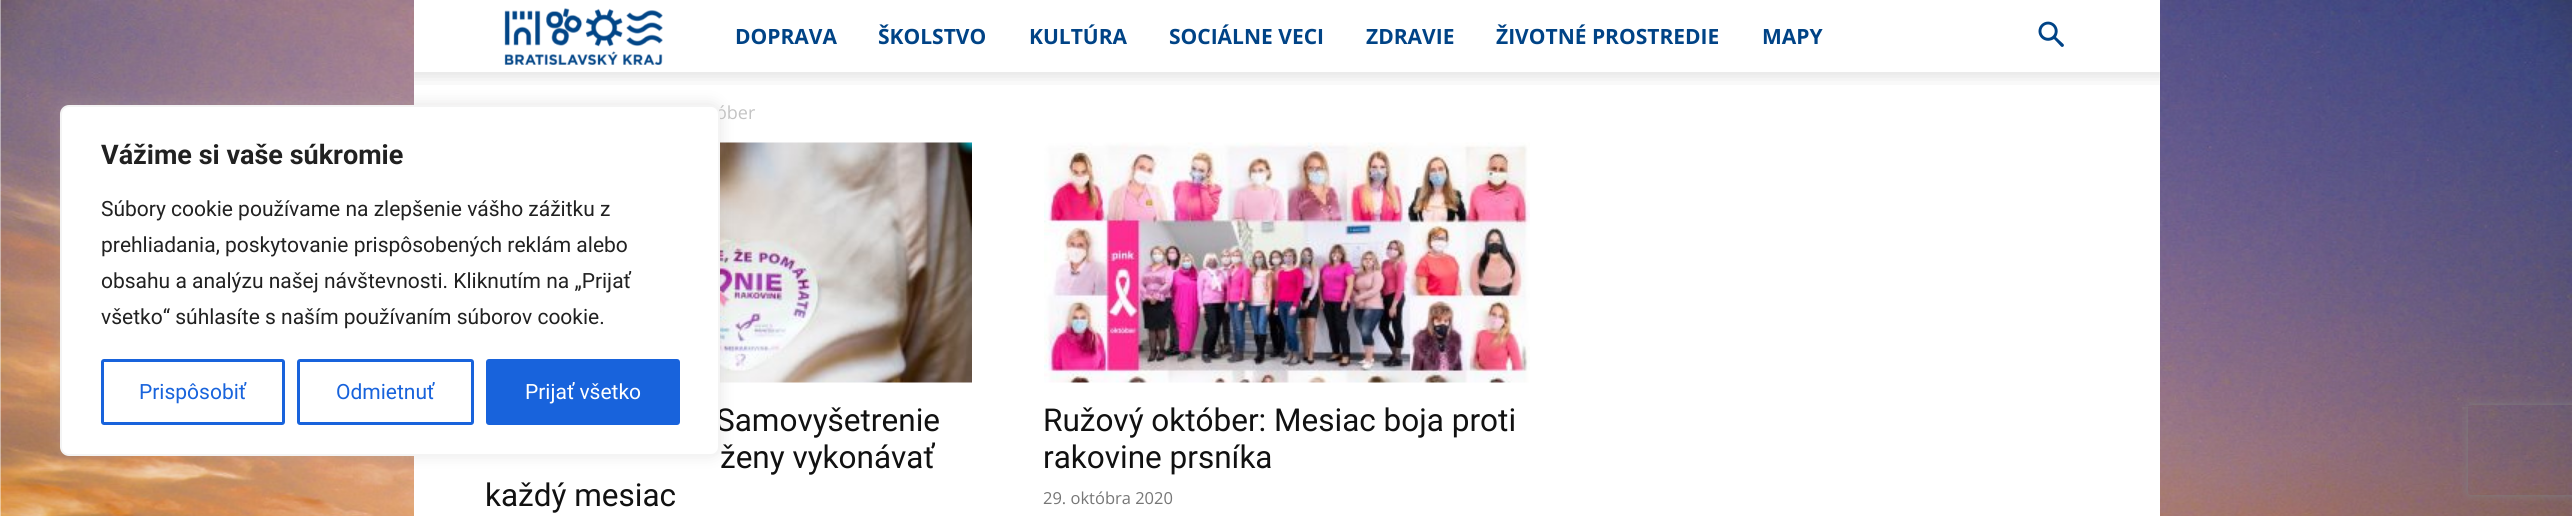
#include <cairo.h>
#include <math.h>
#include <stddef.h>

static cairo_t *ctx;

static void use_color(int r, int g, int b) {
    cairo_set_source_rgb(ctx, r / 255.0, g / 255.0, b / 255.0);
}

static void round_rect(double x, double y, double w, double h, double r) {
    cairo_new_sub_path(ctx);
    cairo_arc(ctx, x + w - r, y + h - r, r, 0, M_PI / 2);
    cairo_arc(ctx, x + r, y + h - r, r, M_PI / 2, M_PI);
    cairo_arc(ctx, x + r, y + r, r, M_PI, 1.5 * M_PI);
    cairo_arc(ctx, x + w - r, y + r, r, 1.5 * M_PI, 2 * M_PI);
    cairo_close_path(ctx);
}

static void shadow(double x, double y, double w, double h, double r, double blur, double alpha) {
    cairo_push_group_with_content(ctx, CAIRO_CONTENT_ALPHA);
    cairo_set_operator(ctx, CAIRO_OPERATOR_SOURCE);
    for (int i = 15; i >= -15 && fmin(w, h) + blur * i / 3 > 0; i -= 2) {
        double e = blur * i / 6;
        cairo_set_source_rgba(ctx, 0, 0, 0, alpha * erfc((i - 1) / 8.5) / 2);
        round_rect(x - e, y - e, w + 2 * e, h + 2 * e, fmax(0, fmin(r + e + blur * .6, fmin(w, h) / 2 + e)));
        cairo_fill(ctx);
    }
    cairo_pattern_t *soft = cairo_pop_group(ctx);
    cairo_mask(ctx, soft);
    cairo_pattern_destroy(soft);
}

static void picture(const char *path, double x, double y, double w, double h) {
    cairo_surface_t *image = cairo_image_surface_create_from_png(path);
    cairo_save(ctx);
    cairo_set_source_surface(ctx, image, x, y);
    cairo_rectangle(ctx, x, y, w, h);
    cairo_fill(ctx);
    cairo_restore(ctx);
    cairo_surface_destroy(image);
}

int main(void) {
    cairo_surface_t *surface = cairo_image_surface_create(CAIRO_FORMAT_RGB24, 2572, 516);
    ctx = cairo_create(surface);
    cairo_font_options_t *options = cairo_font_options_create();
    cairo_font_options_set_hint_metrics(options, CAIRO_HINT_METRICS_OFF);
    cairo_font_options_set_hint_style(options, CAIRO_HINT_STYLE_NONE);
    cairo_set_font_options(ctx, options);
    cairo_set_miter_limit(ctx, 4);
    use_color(255, 255, 255);
    cairo_paint(ctx);
    picture("img1.png", 0, 0, 2572, 516);
    use_color(255, 255, 255);
    cairo_rectangle(ctx, 414, 0, 1746, 516);
    cairo_fill(ctx);
    picture("img4.png", 414, 72, 1747, 13);
    picture("img5.png", 720, 142, 252, 241);
    use_color(172, 171, 171);
    shadow(60, 104, 660, 351, 9, 7.5, 0.3);
    cairo_select_font_face(ctx, "Open Sans", CAIRO_FONT_SLANT_NORMAL, CAIRO_FONT_WEIGHT_NORMAL);
    cairo_set_font_size(ctx, 18);
    use_color(195, 195, 195);
    cairo_move_to(ctx, 716, 119);
    cairo_show_text(ctx, "óber");
    cairo_select_font_face(ctx, "Roboto", CAIRO_FONT_SLANT_NORMAL, CAIRO_FONT_WEIGHT_NORMAL);
    cairo_set_font_size(ctx, 31.5);
    use_color(17, 17, 17);
    cairo_move_to(ctx, 716, 431);
    cairo_show_text(ctx, "Samovyšetrenie");
    use_color(255, 255, 255);
    round_rect(61, 106, 658, 349, 8);
    cairo_fill_preserve(ctx);
    use_color(244, 244, 244);
    cairo_stroke(ctx);
    cairo_select_font_face(ctx, "Roboto", CAIRO_FONT_SLANT_NORMAL, CAIRO_FONT_WEIGHT_BOLD);
    cairo_set_font_size(ctx, 27);
    use_color(33, 33, 33);
    cairo_move_to(ctx, 101, 164);
    cairo_show_text(ctx, "Vážime si vaše súkromie");
    cairo_select_font_face(ctx, "Roboto", CAIRO_FONT_SLANT_NORMAL, CAIRO_FONT_WEIGHT_NORMAL);
    cairo_set_font_size(ctx, 21);
    cairo_move_to(ctx, 101, 216);
    cairo_show_text(ctx, "Súbory cookie používame na zlepšenie vášho zážitku z");
    cairo_move_to(ctx, 101, 252);
    cairo_show_text(ctx, "prehliadania, poskytovanie prispôsobených reklám alebo");
    cairo_move_to(ctx, 101, 288);
    cairo_show_text(ctx, "obsahu a analýzu našej návštevnosti. Kliknutím na „Prijať");
    cairo_move_to(ctx, 101, 324);
    cairo_show_text(ctx, "všetko“ súhlasíte s naším používaním súborov cookie.");
    round_rect(102.5, 360.5, 181, 63, 1.5);
    use_color(24, 99, 220);
    cairo_set_line_width(ctx, 3);
    cairo_stroke(ctx);
    cairo_move_to(ctx, 139, 399);
    cairo_show_text(ctx, "Prispôsobiť");
    round_rect(298.5, 360.5, 174, 63, 1.5);
    cairo_stroke(ctx);
    cairo_move_to(ctx, 336, 399);
    cairo_show_text(ctx, "Odmietnuť");
    round_rect(487.5, 360.5, 191, 63, 1.5);
    cairo_fill_preserve(ctx);
    cairo_stroke(ctx);
    use_color(255, 255, 255);
    cairo_move_to(ctx, 525, 399);
    cairo_show_text(ctx, "Prijať všetko");
    picture("img2.png", 504, 8, 159, 57);
    cairo_select_font_face(ctx, "Open Sans", CAIRO_FONT_SLANT_NORMAL, CAIRO_FONT_WEIGHT_BOLD);
    use_color(0, 67, 134);
    cairo_move_to(ctx, 735, 44);
    cairo_show_text(ctx, "DOPRAVA");
    cairo_move_to(ctx, 878, 44);
    cairo_show_text(ctx, "ŠKOLSTVO");
    cairo_move_to(ctx, 1029, 44);
    cairo_show_text(ctx, "KULTÚRA");
    cairo_move_to(ctx, 1169, 44);
    cairo_show_text(ctx, "SOCIÁLNE VECI");
    cairo_move_to(ctx, 1366, 44);
    cairo_show_text(ctx, "ZDRAVIE");
    cairo_move_to(ctx, 1496, 44);
    cairo_show_text(ctx, "ŽIVOTNÉ PROSTREDIE");
    cairo_move_to(ctx, 1762, 44);
    cairo_show_text(ctx, "MAPY");
    picture("img3.png", 2038, 21, 26, 26);
    cairo_select_font_face(ctx, "Roboto", CAIRO_FONT_SLANT_NORMAL, CAIRO_FONT_WEIGHT_NORMAL);
    cairo_set_font_size(ctx, 31.5);
    use_color(17, 17, 17);
    cairo_move_to(ctx, 720, 468);
    cairo_show_text(ctx, "ženy vykonávať");
    cairo_move_to(ctx, 485, 506);
    cairo_show_text(ctx, "každý mesiac");
    picture("img6.png", 1044, 142, 486, 241);
    cairo_move_to(ctx, 1043, 431);
    cairo_show_text(ctx, "Ružový október: Mesiac boja proti");
    cairo_move_to(ctx, 1043, 468);
    cairo_show_text(ctx, "rakovine prsníka");
    cairo_select_font_face(ctx, "Open Sans", CAIRO_FONT_SLANT_NORMAL, CAIRO_FONT_WEIGHT_NORMAL);
    cairo_set_font_size(ctx, 16.5);
    use_color(118, 118, 118);
    cairo_move_to(ctx, 1043, 504);
    cairo_show_text(ctx, "29. októbra 2020");
    cairo_save(ctx);
    cairo_set_fill_rule(ctx, CAIRO_FILL_RULE_EVEN_ODD);
    cairo_new_path(ctx);
    cairo_move_to(ctx, 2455, 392);
    cairo_line_to(ctx, 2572, 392);
    cairo_line_to(ctx, 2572, 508);
    cairo_line_to(ctx, 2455, 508);
    cairo_close_path(ctx);
    cairo_move_to(ctx, 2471, 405);
    cairo_line_to(ctx, 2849, 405);
    cairo_curve_to(ctx, 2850.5, 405, 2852, 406.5, 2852, 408);
    cairo_line_to(ctx, 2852, 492);
    cairo_curve_to(ctx, 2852, 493.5, 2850.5, 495, 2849, 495);
    cairo_line_to(ctx, 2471, 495);
    cairo_curve_to(ctx, 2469.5, 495, 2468, 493.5, 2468, 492);
    cairo_line_to(ctx, 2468, 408);
    cairo_curve_to(ctx, 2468, 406.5, 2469.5, 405, 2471, 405);
    cairo_close_path(ctx);
    cairo_clip(ctx);
    use_color(128, 128, 128);
    shadow(2468, 405, 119, 90, 3, 4, 1);
    cairo_restore(ctx);
    cairo_surface_write_to_png(surface, "result.png");
    cairo_font_options_destroy(options);
    cairo_destroy(ctx);
    cairo_surface_destroy(surface);
    return 0;
}
